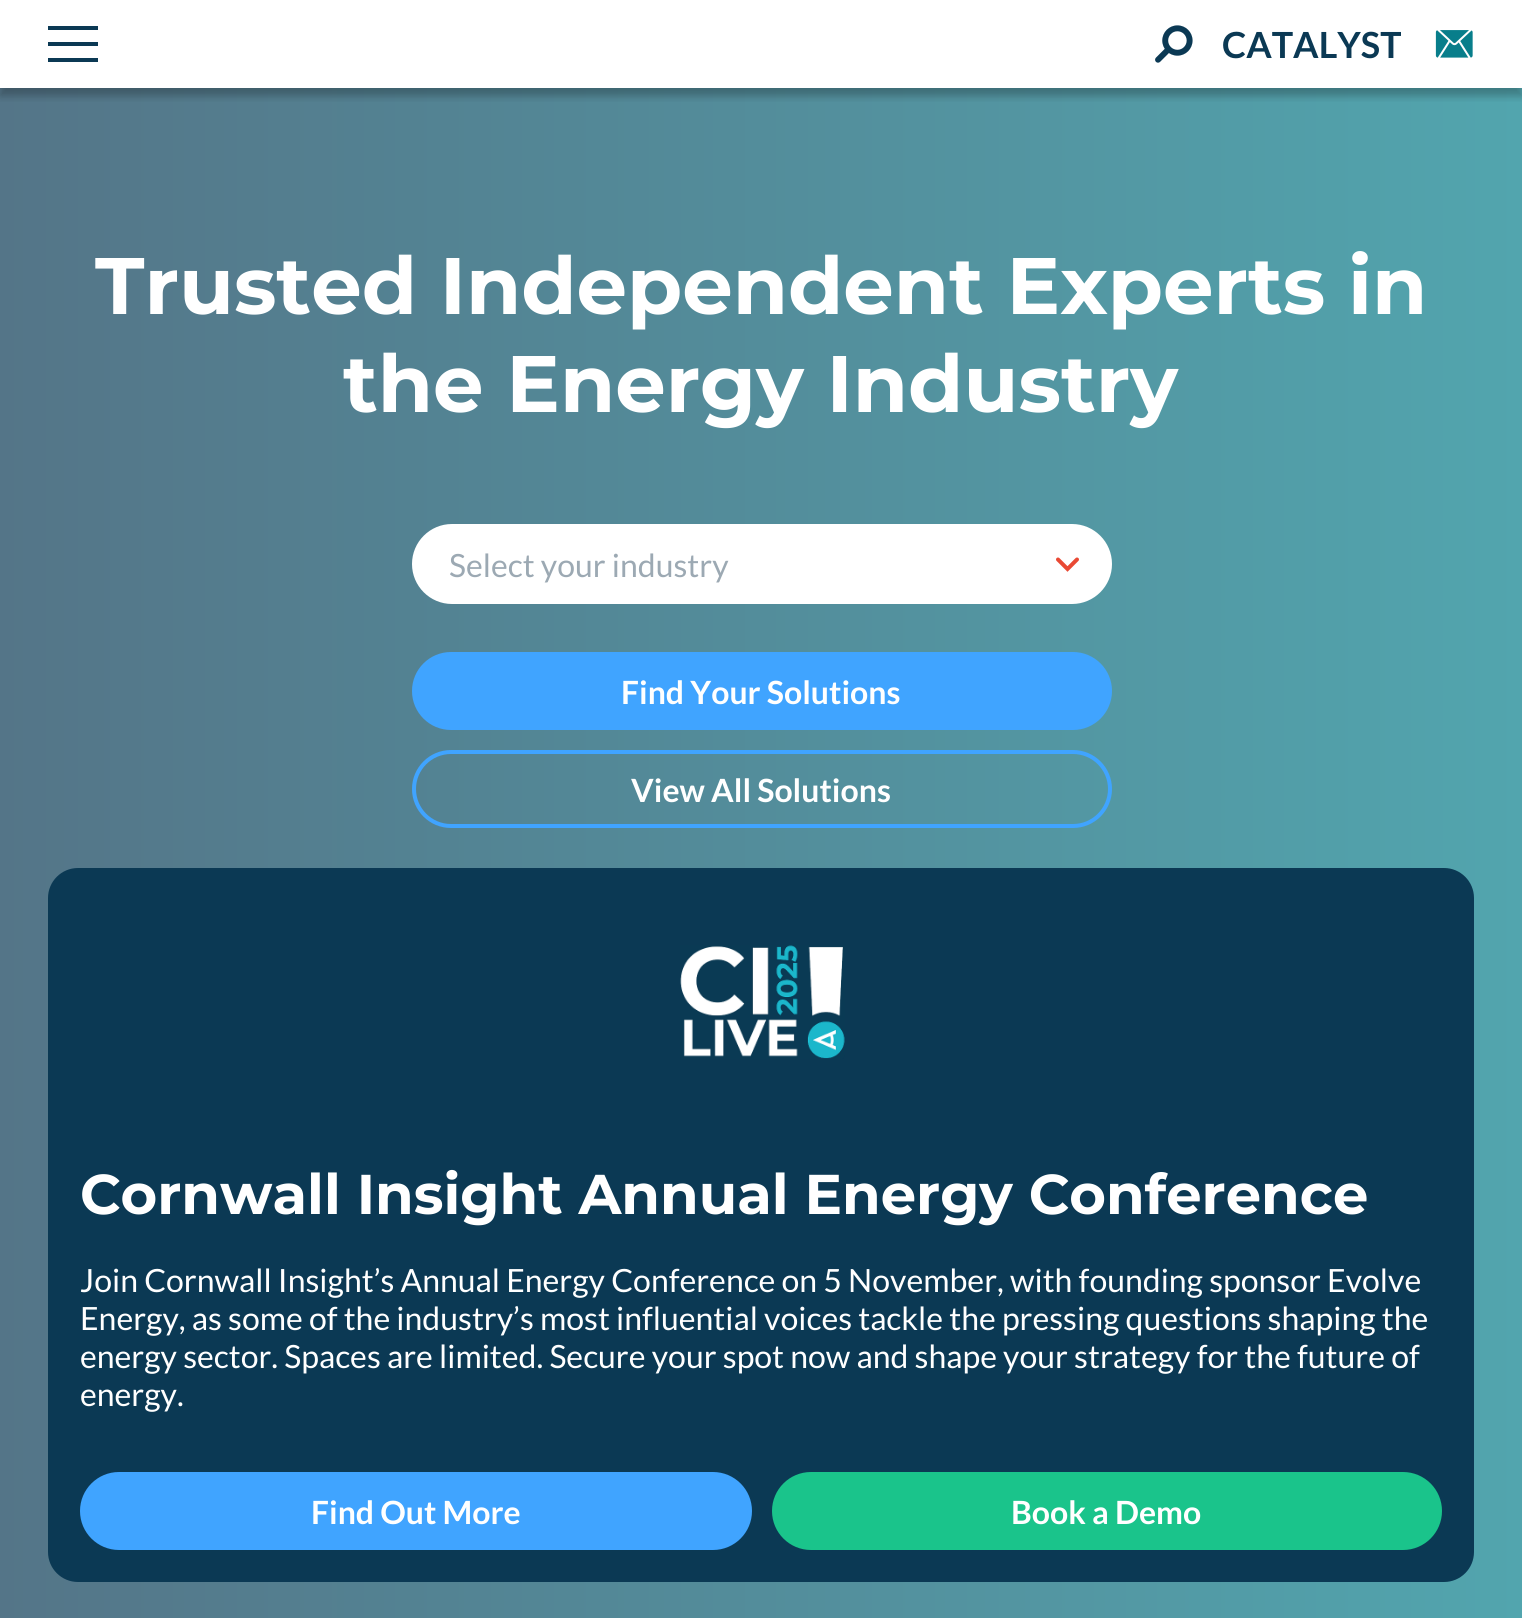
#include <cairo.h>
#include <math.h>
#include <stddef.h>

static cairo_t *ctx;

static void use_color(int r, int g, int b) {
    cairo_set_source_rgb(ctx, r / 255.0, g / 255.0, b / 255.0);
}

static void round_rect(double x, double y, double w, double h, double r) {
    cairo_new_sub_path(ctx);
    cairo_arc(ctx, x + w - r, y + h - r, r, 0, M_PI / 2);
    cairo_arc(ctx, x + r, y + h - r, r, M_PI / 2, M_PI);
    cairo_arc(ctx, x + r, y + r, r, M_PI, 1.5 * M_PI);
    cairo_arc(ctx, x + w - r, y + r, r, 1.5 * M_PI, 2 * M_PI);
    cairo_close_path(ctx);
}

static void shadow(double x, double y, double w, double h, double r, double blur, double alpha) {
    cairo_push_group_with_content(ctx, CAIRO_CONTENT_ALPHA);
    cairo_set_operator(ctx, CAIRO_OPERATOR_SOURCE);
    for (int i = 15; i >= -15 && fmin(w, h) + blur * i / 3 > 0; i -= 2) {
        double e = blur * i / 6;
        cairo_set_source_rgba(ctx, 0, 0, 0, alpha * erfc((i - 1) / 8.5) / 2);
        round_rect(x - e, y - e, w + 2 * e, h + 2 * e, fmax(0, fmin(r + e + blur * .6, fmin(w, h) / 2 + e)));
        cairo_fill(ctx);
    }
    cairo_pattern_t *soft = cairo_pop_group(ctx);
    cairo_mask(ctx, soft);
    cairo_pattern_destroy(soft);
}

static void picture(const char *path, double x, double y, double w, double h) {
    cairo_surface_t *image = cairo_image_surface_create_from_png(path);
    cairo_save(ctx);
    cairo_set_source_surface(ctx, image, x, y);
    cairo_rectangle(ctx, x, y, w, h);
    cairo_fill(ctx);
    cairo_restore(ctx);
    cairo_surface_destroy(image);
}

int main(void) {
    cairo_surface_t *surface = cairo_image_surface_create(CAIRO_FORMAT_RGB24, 1522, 1618);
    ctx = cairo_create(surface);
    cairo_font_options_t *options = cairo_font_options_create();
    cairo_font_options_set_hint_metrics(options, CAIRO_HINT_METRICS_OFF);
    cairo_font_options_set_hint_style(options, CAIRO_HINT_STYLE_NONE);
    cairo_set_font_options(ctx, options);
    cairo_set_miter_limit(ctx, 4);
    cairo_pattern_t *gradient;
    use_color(255, 255, 255);
    cairo_paint(ctx);
    gradient = cairo_pattern_create_linear(0, 915, 1522, 915);
    cairo_pattern_add_color_stop_rgba(gradient, 0, 0.329, 0.459, 0.533, 1);
    cairo_pattern_add_color_stop_rgba(gradient, 1, 0.322, 0.647, 0.682, 1);
    cairo_set_source(ctx, gradient);
    cairo_pattern_destroy(gradient);
    cairo_rectangle(ctx, 0, 88, 1522, 1530);
    cairo_fill(ctx);
    cairo_save(ctx);
    cairo_rectangle(ctx, 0, 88, 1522, 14);
    cairo_clip(ctx);
    use_color(0, 0, 0);
    shadow(0, 8, 1522, 88, 0, 4, 0.25);
    cairo_restore(ctx);
    use_color(11, 57, 84);
    cairo_rectangle(ctx, 48, 26, 50, 4);
    cairo_fill(ctx);
    cairo_rectangle(ctx, 48, 42, 50, 4);
    cairo_fill(ctx);
    cairo_rectangle(ctx, 48, 58, 50, 4);
    cairo_fill(ctx);
    picture("img1.png", 1155, 25, 38, 38);
    cairo_select_font_face(ctx, "Lato", CAIRO_FONT_SLANT_NORMAL, CAIRO_FONT_WEIGHT_BOLD);
    cairo_set_font_size(ctx, 36);
    cairo_move_to(ctx, 1222, 58);
    cairo_show_text(ctx, "CATALYST");
    picture("img2.png", 1435, 30, 38, 28);
    cairo_select_font_face(ctx, "Montserrat", CAIRO_FONT_SLANT_NORMAL, CAIRO_FONT_WEIGHT_BOLD);
    cairo_set_font_size(ctx, 80);
    use_color(255, 255, 255);
    cairo_move_to(ctx, 95, 314);
    cairo_show_text(ctx, "Trusted Independent Experts in");
    cairo_move_to(ctx, 343, 412);
    cairo_show_text(ctx, "the Energy Industry");
    round_rect(412, 524, 700, 80, 40);
    cairo_fill(ctx);
    cairo_select_font_face(ctx, "Lato", CAIRO_FONT_SLANT_NORMAL, CAIRO_FONT_WEIGHT_NORMAL);
    cairo_set_font_size(ctx, 32);
    use_color(156, 169, 179);
    cairo_move_to(ctx, 449, 577);
    cairo_show_text(ctx, "Select your industry");
    cairo_new_path(ctx);
    cairo_move_to(ctx, 1077, 559.5);
    cairo_line_to(ctx, 1067.5, 569);
    cairo_line_to(ctx, 1058, 559.5);
    use_color(233, 73, 52);
    cairo_set_line_width(ctx, 4);
    cairo_set_line_cap(ctx, CAIRO_LINE_CAP_ROUND);
    cairo_stroke(ctx);
    use_color(64, 164, 255);
    round_rect(414, 654, 696, 74, 37);
    cairo_fill_preserve(ctx);
    cairo_set_line_cap(ctx, CAIRO_LINE_CAP_BUTT);
    cairo_stroke(ctx);
    cairo_select_font_face(ctx, "Lato", CAIRO_FONT_SLANT_NORMAL, CAIRO_FONT_WEIGHT_BOLD);
    use_color(255, 255, 255);
    cairo_move_to(ctx, 621, 704);
    cairo_show_text(ctx, "Find Your Solutions");
    round_rect(414, 752, 696, 74, 37);
    use_color(64, 164, 255);
    cairo_stroke(ctx);
    use_color(255, 255, 255);
    cairo_move_to(ctx, 631, 802);
    cairo_show_text(ctx, "View All Solutions");
    use_color(11, 57, 84);
    round_rect(48, 868, 1426, 714, 30);
    cairo_fill(ctx);
    picture("img3.png", 680, 945, 165, 114);
    cairo_select_font_face(ctx, "Montserrat", CAIRO_FONT_SLANT_NORMAL, CAIRO_FONT_WEIGHT_BOLD);
    cairo_set_font_size(ctx, 56);
    use_color(255, 255, 255);
    cairo_move_to(ctx, 80, 1214);
    cairo_show_text(ctx, "Cornwall Insight Annual Energy Conference");
    cairo_select_font_face(ctx, "Lato", CAIRO_FONT_SLANT_NORMAL, CAIRO_FONT_WEIGHT_NORMAL);
    cairo_set_font_size(ctx, 32);
    cairo_move_to(ctx, 80, 1292);
    cairo_show_text(ctx, "Join Cornwall Insight’s Annual Energy Conference on 5 November, with founding sponsor Evolve");
    cairo_move_to(ctx, 80, 1330);
    cairo_show_text(ctx, "Energy, as some of the industry’s most influential voices tackle the pressing questions shaping the");
    cairo_move_to(ctx, 80, 1368);
    cairo_show_text(ctx, "energy sector. Spaces are limited. Secure your spot now and shape your strategy for the future of");
    cairo_move_to(ctx, 80, 1406);
    cairo_show_text(ctx, "energy.");
    use_color(64, 164, 255);
    round_rect(82, 1474, 668, 74, 37);
    cairo_fill_preserve(ctx);
    cairo_stroke(ctx);
    cairo_select_font_face(ctx, "Lato", CAIRO_FONT_SLANT_NORMAL, CAIRO_FONT_WEIGHT_BOLD);
    use_color(255, 255, 255);
    cairo_move_to(ctx, 311, 1524);
    cairo_show_text(ctx, "Find Out More");
    use_color(26, 196, 139);
    round_rect(774, 1474, 666, 74, 37);
    cairo_fill_preserve(ctx);
    cairo_stroke(ctx);
    use_color(255, 255, 255);
    cairo_move_to(ctx, 1011, 1524);
    cairo_show_text(ctx, "Book a Demo");
    cairo_surface_write_to_png(surface, "result.png");
    cairo_font_options_destroy(options);
    cairo_destroy(ctx);
    cairo_surface_destroy(surface);
    return 0;
}
